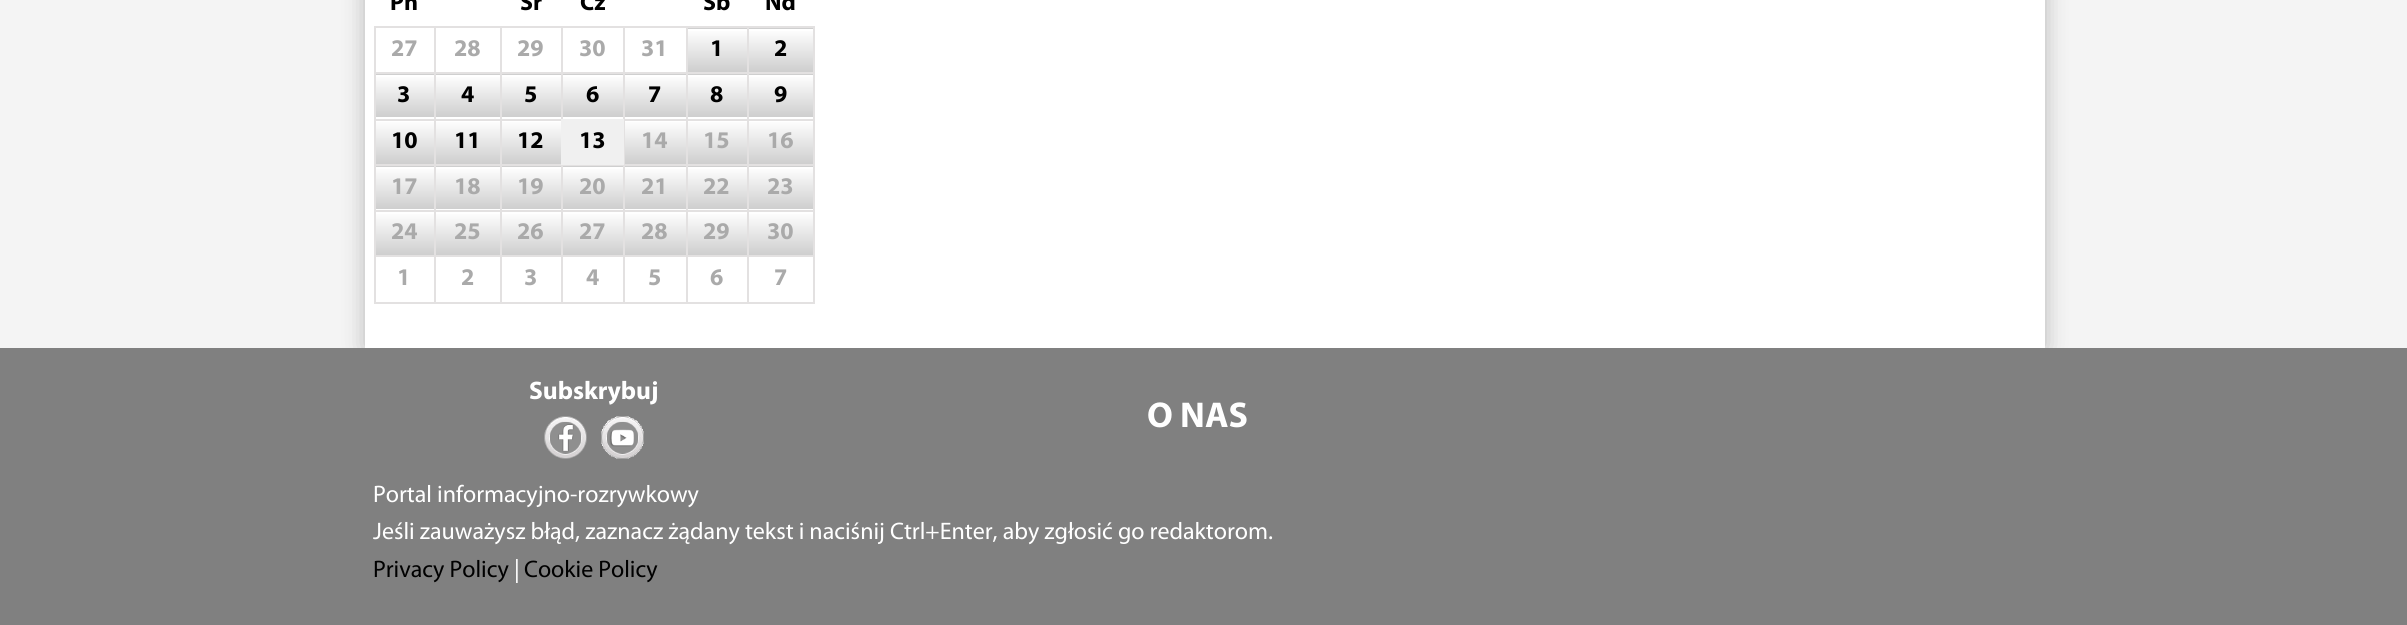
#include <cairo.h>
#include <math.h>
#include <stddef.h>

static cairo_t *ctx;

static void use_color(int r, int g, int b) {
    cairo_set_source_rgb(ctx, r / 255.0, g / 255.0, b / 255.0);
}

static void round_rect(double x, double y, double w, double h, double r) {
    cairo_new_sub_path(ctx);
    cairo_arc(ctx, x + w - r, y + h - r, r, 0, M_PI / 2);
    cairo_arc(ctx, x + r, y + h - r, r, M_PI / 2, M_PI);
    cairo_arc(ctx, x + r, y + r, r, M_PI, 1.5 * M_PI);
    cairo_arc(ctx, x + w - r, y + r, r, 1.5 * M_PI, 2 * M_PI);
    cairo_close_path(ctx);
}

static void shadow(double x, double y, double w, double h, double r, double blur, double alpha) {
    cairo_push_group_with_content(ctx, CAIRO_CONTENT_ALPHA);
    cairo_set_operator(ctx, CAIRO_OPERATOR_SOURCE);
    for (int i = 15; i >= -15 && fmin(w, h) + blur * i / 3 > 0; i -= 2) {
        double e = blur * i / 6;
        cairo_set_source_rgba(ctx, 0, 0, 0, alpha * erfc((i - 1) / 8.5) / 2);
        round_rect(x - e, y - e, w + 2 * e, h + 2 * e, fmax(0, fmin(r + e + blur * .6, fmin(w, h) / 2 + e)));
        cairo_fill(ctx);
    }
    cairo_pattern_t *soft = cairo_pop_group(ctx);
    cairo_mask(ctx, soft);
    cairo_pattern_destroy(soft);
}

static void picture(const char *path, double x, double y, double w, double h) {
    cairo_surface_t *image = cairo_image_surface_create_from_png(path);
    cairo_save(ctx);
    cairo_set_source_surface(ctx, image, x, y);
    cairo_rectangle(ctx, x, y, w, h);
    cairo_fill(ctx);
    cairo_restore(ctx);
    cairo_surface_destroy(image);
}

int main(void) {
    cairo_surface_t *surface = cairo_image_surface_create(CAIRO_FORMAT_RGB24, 2407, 625);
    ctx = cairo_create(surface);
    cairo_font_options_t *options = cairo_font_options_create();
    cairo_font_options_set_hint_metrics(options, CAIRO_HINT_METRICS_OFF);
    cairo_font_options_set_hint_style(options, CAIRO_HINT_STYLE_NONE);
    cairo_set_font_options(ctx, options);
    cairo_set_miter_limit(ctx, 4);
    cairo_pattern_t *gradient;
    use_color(244, 244, 244);
    cairo_paint(ctx);
    use_color(0, 0, 0);
    shadow(365, -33, 1680, 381, 0, 11, 0.25);
    use_color(255, 255, 255);
    cairo_rectangle(ctx, 365, 0, 1680, 348);
    cairo_fill(ctx);
    cairo_select_font_face(ctx, "Myriad", CAIRO_FONT_SLANT_NORMAL, CAIRO_FONT_WEIGHT_BOLD);
    cairo_set_font_size(ctx, 24);
    use_color(0, 0, 0);
    cairo_move_to(ctx, 390, 10);
    cairo_show_text(ctx, "Pn");
    cairo_move_to(ctx, 520, 10);
    cairo_show_text(ctx, "Śr");
    cairo_move_to(ctx, 580, 10);
    cairo_show_text(ctx, "Cz");
    cairo_move_to(ctx, 703, 10);
    cairo_show_text(ctx, "Sb");
    cairo_move_to(ctx, 765, 10);
    cairo_show_text(ctx, "Nd");
    use_color(227, 225, 225);
    cairo_rectangle(ctx, 747, 26, 68, 2);
    cairo_fill(ctx);
    gradient = cairo_pattern_create_linear(780, 29, 780, -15);
    cairo_pattern_add_color_stop_rgba(gradient, 0, 0.808, 0.808, 0.808, 1);
    cairo_pattern_add_color_stop_rgba(gradient, 1, 1, 1, 1, 1);
    cairo_set_source(ctx, gradient);
    cairo_pattern_destroy(gradient);
    cairo_rectangle(ctx, 747, 28, 66, 1);
    cairo_fill(ctx);
    use_color(227, 225, 225);
    cairo_rectangle(ctx, 747, 72, 68, 2);
    cairo_fill(ctx);
    gradient = cairo_pattern_create_linear(780, 75, 780, 33);
    cairo_pattern_add_color_stop_rgba(gradient, 0, 0.808, 0.808, 0.808, 1);
    cairo_pattern_add_color_stop_rgba(gradient, 1, 1, 1, 1, 1);
    cairo_set_source(ctx, gradient);
    cairo_pattern_destroy(gradient);
    cairo_rectangle(ctx, 747, 74, 66, 1);
    cairo_fill(ctx);
    use_color(227, 225, 225);
    cairo_rectangle(ctx, 747, 119, 68, 2);
    cairo_fill(ctx);
    cairo_rectangle(ctx, 747, 164, 68, 2);
    cairo_fill(ctx);
    gradient = cairo_pattern_create_linear(780, 167, 780, 125);
    cairo_pattern_add_color_stop_rgba(gradient, 0, 0.808, 0.808, 0.808, 1);
    cairo_pattern_add_color_stop_rgba(gradient, 1, 1, 1, 1, 1);
    cairo_set_source(ctx, gradient);
    cairo_pattern_destroy(gradient);
    cairo_rectangle(ctx, 747, 166, 66, 1);
    cairo_fill(ctx);
    use_color(227, 225, 225);
    cairo_rectangle(ctx, 747, 210, 68, 2);
    cairo_fill(ctx);
    cairo_rectangle(ctx, 747, 255, 68, 2);
    cairo_fill(ctx);
    cairo_rectangle(ctx, 813, 255, 2, 48);
    cairo_fill(ctx);
    cairo_rectangle(ctx, 747, 302, 68, 2);
    cairo_fill(ctx);
    cairo_rectangle(ctx, 747, 255, 2, 48);
    cairo_fill(ctx);
    cairo_rectangle(ctx, 686, 255, 63, 2);
    cairo_fill(ctx);
    cairo_rectangle(ctx, 747, 210, 2, 47);
    cairo_fill(ctx);
    cairo_rectangle(ctx, 686, 210, 63, 2);
    cairo_fill(ctx);
    cairo_rectangle(ctx, 747, 164, 2, 48);
    cairo_fill(ctx);
    cairo_rectangle(ctx, 686, 164, 63, 2);
    cairo_fill(ctx);
    cairo_rectangle(ctx, 747, 119, 2, 46);
    cairo_fill(ctx);
    cairo_rectangle(ctx, 686, 119, 63, 2);
    cairo_fill(ctx);
    cairo_rectangle(ctx, 747, 72, 2, 48);
    cairo_fill(ctx);
    cairo_rectangle(ctx, 686, 72, 63, 2);
    cairo_fill(ctx);
    cairo_rectangle(ctx, 747, 26, 2, 48);
    cairo_fill(ctx);
    cairo_rectangle(ctx, 686, 26, 63, 2);
    cairo_fill(ctx);
    gradient = cairo_pattern_create_linear(716, 29, 716, -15);
    cairo_pattern_add_color_stop_rgba(gradient, 0, 0.808, 0.808, 0.808, 1);
    cairo_pattern_add_color_stop_rgba(gradient, 1, 1, 1, 1, 1);
    cairo_set_source(ctx, gradient);
    cairo_pattern_destroy(gradient);
    cairo_rectangle(ctx, 686, 28, 61, 1);
    cairo_fill(ctx);
    gradient = cairo_pattern_create_linear(716, 75, 716, 33);
    cairo_pattern_add_color_stop_rgba(gradient, 0, 0.808, 0.808, 0.808, 1);
    cairo_pattern_add_color_stop_rgba(gradient, 1, 1, 1, 1, 1);
    cairo_set_source(ctx, gradient);
    cairo_pattern_destroy(gradient);
    cairo_rectangle(ctx, 686, 74, 61, 1);
    cairo_fill(ctx);
    gradient = cairo_pattern_create_linear(716, 167, 716, 125);
    cairo_pattern_add_color_stop_rgba(gradient, 0, 0.808, 0.808, 0.808, 1);
    cairo_pattern_add_color_stop_rgba(gradient, 1, 1, 1, 1, 1);
    cairo_set_source(ctx, gradient);
    cairo_pattern_destroy(gradient);
    cairo_rectangle(ctx, 686, 166, 61, 1);
    cairo_fill(ctx);
    use_color(227, 225, 225);
    cairo_rectangle(ctx, 686, 302, 63, 2);
    cairo_fill(ctx);
    cairo_rectangle(ctx, 686, 255, 2, 48);
    cairo_fill(ctx);
    cairo_rectangle(ctx, 623, 255, 64, 2);
    cairo_fill(ctx);
    cairo_rectangle(ctx, 686, 210, 2, 47);
    cairo_fill(ctx);
    cairo_rectangle(ctx, 623, 210, 64, 2);
    cairo_fill(ctx);
    cairo_rectangle(ctx, 686, 164, 2, 48);
    cairo_fill(ctx);
    cairo_rectangle(ctx, 623, 164, 64, 2);
    cairo_fill(ctx);
    cairo_rectangle(ctx, 686, 119, 2, 46);
    cairo_fill(ctx);
    cairo_rectangle(ctx, 623, 119, 64, 2);
    cairo_fill(ctx);
    cairo_rectangle(ctx, 686, 72, 2, 48);
    cairo_fill(ctx);
    cairo_rectangle(ctx, 623, 72, 64, 2);
    cairo_fill(ctx);
    cairo_rectangle(ctx, 686, 26, 2, 48);
    cairo_fill(ctx);
    cairo_rectangle(ctx, 623, 26, 64, 2);
    cairo_fill(ctx);
    gradient = cairo_pattern_create_linear(593, 75, 593, 33);
    cairo_pattern_add_color_stop_rgba(gradient, 0, 0.808, 0.808, 0.808, 1);
    cairo_pattern_add_color_stop_rgba(gradient, 1, 1, 1, 1, 1);
    cairo_set_source(ctx, gradient);
    cairo_pattern_destroy(gradient);
    cairo_rectangle(ctx, 561, 74, 63, 1);
    cairo_fill(ctx);
    gradient = cairo_pattern_create_linear(655, 75, 655, 33);
    cairo_pattern_add_color_stop_rgba(gradient, 0, 0.808, 0.808, 0.808, 1);
    cairo_pattern_add_color_stop_rgba(gradient, 1, 1, 1, 1, 1);
    cairo_set_source(ctx, gradient);
    cairo_pattern_destroy(gradient);
    cairo_rectangle(ctx, 624, 74, 62, 1);
    cairo_fill(ctx);
    gradient = cairo_pattern_create_linear(593, 167, 593, 125);
    cairo_pattern_add_color_stop_rgba(gradient, 0, 0.808, 0.808, 0.808, 1);
    cairo_pattern_add_color_stop_rgba(gradient, 1, 1, 1, 1, 1);
    cairo_set_source(ctx, gradient);
    cairo_pattern_destroy(gradient);
    cairo_rectangle(ctx, 561, 166, 63, 1);
    cairo_fill(ctx);
    gradient = cairo_pattern_create_linear(655, 167, 655, 125);
    cairo_pattern_add_color_stop_rgba(gradient, 0, 0.808, 0.808, 0.808, 1);
    cairo_pattern_add_color_stop_rgba(gradient, 1, 1, 1, 1, 1);
    cairo_set_source(ctx, gradient);
    cairo_pattern_destroy(gradient);
    cairo_rectangle(ctx, 624, 166, 62, 1);
    cairo_fill(ctx);
    use_color(227, 225, 225);
    cairo_rectangle(ctx, 623, 302, 64, 2);
    cairo_fill(ctx);
    cairo_rectangle(ctx, 623, 255, 2, 48);
    cairo_fill(ctx);
    cairo_rectangle(ctx, 561, 255, 63, 2);
    cairo_fill(ctx);
    cairo_rectangle(ctx, 623, 210, 2, 47);
    cairo_fill(ctx);
    cairo_rectangle(ctx, 561, 210, 63, 2);
    cairo_fill(ctx);
    cairo_rectangle(ctx, 623, 164, 2, 48);
    cairo_fill(ctx);
    cairo_rectangle(ctx, 624, 119, 1, 46);
    cairo_fill(ctx);
    cairo_rectangle(ctx, 623, 72, 2, 48);
    cairo_fill(ctx);
    cairo_rectangle(ctx, 561, 72, 63, 2);
    cairo_fill(ctx);
    cairo_rectangle(ctx, 623, 26, 2, 48);
    cairo_fill(ctx);
    cairo_rectangle(ctx, 561, 26, 63, 2);
    cairo_fill(ctx);
    cairo_rectangle(ctx, 500, 119, 63, 2);
    cairo_fill(ctx);
    cairo_rectangle(ctx, 561, 72, 2, 48);
    cairo_fill(ctx);
    cairo_rectangle(ctx, 500, 72, 63, 2);
    cairo_fill(ctx);
    cairo_rectangle(ctx, 561, 26, 2, 48);
    cairo_fill(ctx);
    cairo_rectangle(ctx, 500, 26, 63, 2);
    cairo_fill(ctx);
    gradient = cairo_pattern_create_linear(530, 75, 530, 33);
    cairo_pattern_add_color_stop_rgba(gradient, 0, 0.808, 0.808, 0.808, 1);
    cairo_pattern_add_color_stop_rgba(gradient, 1, 1, 1, 1, 1);
    cairo_set_source(ctx, gradient);
    cairo_pattern_destroy(gradient);
    cairo_rectangle(ctx, 500, 74, 61, 1);
    cairo_fill(ctx);
    use_color(227, 225, 225);
    cairo_rectangle(ctx, 561, 165, 63, 1);
    cairo_fill(ctx);
    cairo_rectangle(ctx, 561, 302, 63, 2);
    cairo_fill(ctx);
    cairo_rectangle(ctx, 561, 255, 2, 48);
    cairo_fill(ctx);
    cairo_rectangle(ctx, 500, 255, 63, 2);
    cairo_fill(ctx);
    cairo_rectangle(ctx, 561, 210, 2, 47);
    cairo_fill(ctx);
    cairo_rectangle(ctx, 500, 210, 63, 2);
    cairo_fill(ctx);
    cairo_rectangle(ctx, 561, 164, 2, 48);
    cairo_fill(ctx);
    cairo_rectangle(ctx, 500, 164, 63, 2);
    cairo_fill(ctx);
    gradient = cairo_pattern_create_linear(530, 167, 530, 125);
    cairo_pattern_add_color_stop_rgba(gradient, 0, 0.808, 0.808, 0.808, 1);
    cairo_pattern_add_color_stop_rgba(gradient, 1, 1, 1, 1, 1);
    cairo_set_source(ctx, gradient);
    cairo_pattern_destroy(gradient);
    cairo_rectangle(ctx, 500, 166, 61, 1);
    cairo_fill(ctx);
    use_color(227, 225, 225);
    cairo_rectangle(ctx, 500, 302, 63, 2);
    cairo_fill(ctx);
    cairo_rectangle(ctx, 500, 255, 2, 48);
    cairo_fill(ctx);
    cairo_rectangle(ctx, 434, 255, 67, 2);
    cairo_fill(ctx);
    cairo_rectangle(ctx, 500, 210, 2, 47);
    cairo_fill(ctx);
    cairo_rectangle(ctx, 434, 210, 67, 2);
    cairo_fill(ctx);
    cairo_rectangle(ctx, 500, 164, 2, 48);
    cairo_fill(ctx);
    cairo_rectangle(ctx, 434, 164, 67, 2);
    cairo_fill(ctx);
    cairo_rectangle(ctx, 500, 119, 2, 46);
    cairo_fill(ctx);
    cairo_rectangle(ctx, 434, 119, 67, 2);
    cairo_fill(ctx);
    cairo_rectangle(ctx, 500, 72, 2, 48);
    cairo_fill(ctx);
    cairo_rectangle(ctx, 434, 72, 67, 2);
    cairo_fill(ctx);
    cairo_rectangle(ctx, 500, 26, 2, 48);
    cairo_fill(ctx);
    cairo_rectangle(ctx, 434, 26, 67, 2);
    cairo_fill(ctx);
    gradient = cairo_pattern_create_linear(404, 75, 404, 33);
    cairo_pattern_add_color_stop_rgba(gradient, 0, 0.808, 0.808, 0.808, 1);
    cairo_pattern_add_color_stop_rgba(gradient, 1, 1, 1, 1, 1);
    cairo_set_source(ctx, gradient);
    cairo_pattern_destroy(gradient);
    cairo_rectangle(ctx, 374, 74, 61, 1);
    cairo_fill(ctx);
    gradient = cairo_pattern_create_linear(467, 75, 467, 33);
    cairo_pattern_add_color_stop_rgba(gradient, 0, 0.808, 0.808, 0.808, 1);
    cairo_pattern_add_color_stop_rgba(gradient, 1, 1, 1, 1, 1);
    cairo_set_source(ctx, gradient);
    cairo_pattern_destroy(gradient);
    cairo_rectangle(ctx, 435, 74, 65, 1);
    cairo_fill(ctx);
    gradient = cairo_pattern_create_linear(404, 167, 404, 125);
    cairo_pattern_add_color_stop_rgba(gradient, 0, 0.808, 0.808, 0.808, 1);
    cairo_pattern_add_color_stop_rgba(gradient, 1, 1, 1, 1, 1);
    cairo_set_source(ctx, gradient);
    cairo_pattern_destroy(gradient);
    cairo_rectangle(ctx, 374, 166, 61, 1);
    cairo_fill(ctx);
    gradient = cairo_pattern_create_linear(467, 167, 467, 125);
    cairo_pattern_add_color_stop_rgba(gradient, 0, 0.808, 0.808, 0.808, 1);
    cairo_pattern_add_color_stop_rgba(gradient, 1, 1, 1, 1, 1);
    cairo_set_source(ctx, gradient);
    cairo_pattern_destroy(gradient);
    cairo_rectangle(ctx, 435, 166, 65, 1);
    cairo_fill(ctx);
    use_color(227, 225, 225);
    cairo_rectangle(ctx, 434, 302, 67, 2);
    cairo_fill(ctx);
    cairo_rectangle(ctx, 434, 255, 2, 48);
    cairo_fill(ctx);
    cairo_rectangle(ctx, 374, 255, 61, 2);
    cairo_fill(ctx);
    cairo_rectangle(ctx, 434, 210, 2, 47);
    cairo_fill(ctx);
    cairo_rectangle(ctx, 374, 210, 61, 2);
    cairo_fill(ctx);
    cairo_rectangle(ctx, 434, 164, 2, 48);
    cairo_fill(ctx);
    cairo_rectangle(ctx, 374, 164, 61, 2);
    cairo_fill(ctx);
    cairo_rectangle(ctx, 434, 119, 2, 46);
    cairo_fill(ctx);
    cairo_rectangle(ctx, 374, 119, 61, 2);
    cairo_fill(ctx);
    cairo_rectangle(ctx, 434, 72, 2, 48);
    cairo_fill(ctx);
    cairo_rectangle(ctx, 374, 72, 61, 2);
    cairo_fill(ctx);
    cairo_rectangle(ctx, 434, 26, 2, 48);
    cairo_fill(ctx);
    cairo_rectangle(ctx, 374, 26, 61, 2);
    cairo_fill(ctx);
    cairo_rectangle(ctx, 374, 302, 61, 2);
    cairo_fill(ctx);
    cairo_rectangle(ctx, 374, 255, 2, 48);
    cairo_fill(ctx);
    cairo_rectangle(ctx, 374, 210, 2, 47);
    cairo_fill(ctx);
    cairo_rectangle(ctx, 374, 164, 2, 48);
    cairo_fill(ctx);
    cairo_rectangle(ctx, 374, 119, 2, 46);
    cairo_fill(ctx);
    cairo_rectangle(ctx, 374, 72, 2, 48);
    cairo_fill(ctx);
    cairo_rectangle(ctx, 374, 26, 2, 48);
    cairo_fill(ctx);
    use_color(170, 170, 170);
    cairo_move_to(ctx, 391, 56);
    cairo_show_text(ctx, "27");
    cairo_move_to(ctx, 454, 56);
    cairo_show_text(ctx, "28");
    cairo_move_to(ctx, 517, 56);
    cairo_show_text(ctx, "29");
    cairo_move_to(ctx, 579, 56);
    cairo_show_text(ctx, "30");
    cairo_move_to(ctx, 641, 56);
    cairo_show_text(ctx, "31");
    gradient = cairo_pattern_create_linear(716, 72, 716, 29);
    cairo_pattern_add_color_stop_rgba(gradient, 0, 0.808, 0.808, 0.808, 1);
    cairo_pattern_add_color_stop_rgba(gradient, 1, 1, 1, 1, 1);
    cairo_set_source(ctx, gradient);
    cairo_pattern_destroy(gradient);
    cairo_rectangle(ctx, 688, 31, 59, 41);
    cairo_fill(ctx);
    use_color(0, 0, 0);
    cairo_move_to(ctx, 710, 56);
    cairo_show_text(ctx, "1");
    gradient = cairo_pattern_create_linear(780, 72, 780, 29);
    cairo_pattern_add_color_stop_rgba(gradient, 0, 0.808, 0.808, 0.808, 1);
    cairo_pattern_add_color_stop_rgba(gradient, 1, 1, 1, 1, 1);
    cairo_set_source(ctx, gradient);
    cairo_pattern_destroy(gradient);
    cairo_rectangle(ctx, 749, 31, 64, 41);
    cairo_fill(ctx);
    use_color(227, 225, 225);
    cairo_rectangle(ctx, 813, 210, 2, 47);
    cairo_fill(ctx);
    cairo_rectangle(ctx, 813, 164, 2, 48);
    cairo_fill(ctx);
    cairo_rectangle(ctx, 813, 119, 2, 46);
    cairo_fill(ctx);
    cairo_rectangle(ctx, 813, 72, 2, 48);
    cairo_fill(ctx);
    cairo_rectangle(ctx, 813, 26, 2, 48);
    cairo_fill(ctx);
    use_color(0, 0, 0);
    cairo_move_to(ctx, 774, 56);
    cairo_show_text(ctx, "2");
    gradient = cairo_pattern_create_linear(404, 117, 404, 75);
    cairo_pattern_add_color_stop_rgba(gradient, 0, 0.808, 0.808, 0.808, 1);
    cairo_pattern_add_color_stop_rgba(gradient, 1, 1, 1, 1, 1);
    cairo_set_source(ctx, gradient);
    cairo_pattern_destroy(gradient);
    cairo_rectangle(ctx, 376, 77, 58, 40);
    cairo_fill(ctx);
    use_color(0, 0, 0);
    cairo_move_to(ctx, 397, 102);
    cairo_show_text(ctx, "3");
    gradient = cairo_pattern_create_linear(467, 117, 467, 75);
    cairo_pattern_add_color_stop_rgba(gradient, 0, 0.808, 0.808, 0.808, 1);
    cairo_pattern_add_color_stop_rgba(gradient, 1, 1, 1, 1, 1);
    cairo_set_source(ctx, gradient);
    cairo_pattern_destroy(gradient);
    cairo_rectangle(ctx, 436, 77, 64, 40);
    cairo_fill(ctx);
    use_color(0, 0, 0);
    cairo_move_to(ctx, 461, 102);
    cairo_show_text(ctx, "4");
    gradient = cairo_pattern_create_linear(530, 117, 530, 75);
    cairo_pattern_add_color_stop_rgba(gradient, 0, 0.808, 0.808, 0.808, 1);
    cairo_pattern_add_color_stop_rgba(gradient, 1, 1, 1, 1, 1);
    cairo_set_source(ctx, gradient);
    cairo_pattern_destroy(gradient);
    cairo_rectangle(ctx, 502, 77, 59, 40);
    cairo_fill(ctx);
    use_color(0, 0, 0);
    cairo_move_to(ctx, 524, 102);
    cairo_show_text(ctx, "5");
    gradient = cairo_pattern_create_linear(593, 117, 593, 75);
    cairo_pattern_add_color_stop_rgba(gradient, 0, 0.808, 0.808, 0.808, 1);
    cairo_pattern_add_color_stop_rgba(gradient, 1, 1, 1, 1, 1);
    cairo_set_source(ctx, gradient);
    cairo_pattern_destroy(gradient);
    cairo_rectangle(ctx, 563, 77, 60, 40);
    cairo_fill(ctx);
    use_color(0, 0, 0);
    cairo_move_to(ctx, 586, 102);
    cairo_show_text(ctx, "6");
    gradient = cairo_pattern_create_linear(655, 117, 655, 75);
    cairo_pattern_add_color_stop_rgba(gradient, 0, 0.808, 0.808, 0.808, 1);
    cairo_pattern_add_color_stop_rgba(gradient, 1, 1, 1, 1, 1);
    cairo_set_source(ctx, gradient);
    cairo_pattern_destroy(gradient);
    cairo_rectangle(ctx, 625, 77, 61, 40);
    cairo_fill(ctx);
    use_color(0, 0, 0);
    cairo_move_to(ctx, 648, 102);
    cairo_show_text(ctx, "7");
    gradient = cairo_pattern_create_linear(716, 117, 716, 75);
    cairo_pattern_add_color_stop_rgba(gradient, 0, 0.808, 0.808, 0.808, 1);
    cairo_pattern_add_color_stop_rgba(gradient, 1, 1, 1, 1, 1);
    cairo_set_source(ctx, gradient);
    cairo_pattern_destroy(gradient);
    cairo_rectangle(ctx, 688, 77, 59, 40);
    cairo_fill(ctx);
    use_color(0, 0, 0);
    cairo_move_to(ctx, 710, 102);
    cairo_show_text(ctx, "8");
    gradient = cairo_pattern_create_linear(780, 117, 780, 75);
    cairo_pattern_add_color_stop_rgba(gradient, 0, 0.808, 0.808, 0.808, 1);
    cairo_pattern_add_color_stop_rgba(gradient, 1, 1, 1, 1, 1);
    cairo_set_source(ctx, gradient);
    cairo_pattern_destroy(gradient);
    cairo_rectangle(ctx, 749, 77, 64, 40);
    cairo_fill(ctx);
    use_color(0, 0, 0);
    cairo_move_to(ctx, 774, 102);
    cairo_show_text(ctx, "9");
    gradient = cairo_pattern_create_linear(404, 164, 404, 120);
    cairo_pattern_add_color_stop_rgba(gradient, 0, 0.808, 0.808, 0.808, 1);
    cairo_pattern_add_color_stop_rgba(gradient, 1, 1, 1, 1, 1);
    cairo_set_source(ctx, gradient);
    cairo_pattern_destroy(gradient);
    cairo_rectangle(ctx, 376, 122, 58, 42);
    cairo_fill(ctx);
    use_color(0, 0, 0);
    cairo_move_to(ctx, 391, 148);
    cairo_show_text(ctx, "10");
    gradient = cairo_pattern_create_linear(467, 164, 467, 120);
    cairo_pattern_add_color_stop_rgba(gradient, 0, 0.808, 0.808, 0.808, 1);
    cairo_pattern_add_color_stop_rgba(gradient, 1, 1, 1, 1, 1);
    cairo_set_source(ctx, gradient);
    cairo_pattern_destroy(gradient);
    cairo_rectangle(ctx, 436, 122, 64, 42);
    cairo_fill(ctx);
    use_color(0, 0, 0);
    cairo_move_to(ctx, 454, 148);
    cairo_show_text(ctx, "11");
    gradient = cairo_pattern_create_linear(530, 164, 530, 120);
    cairo_pattern_add_color_stop_rgba(gradient, 0, 0.808, 0.808, 0.808, 1);
    cairo_pattern_add_color_stop_rgba(gradient, 1, 1, 1, 1, 1);
    cairo_set_source(ctx, gradient);
    cairo_pattern_destroy(gradient);
    cairo_rectangle(ctx, 502, 122, 59, 42);
    cairo_fill(ctx);
    use_color(0, 0, 0);
    cairo_move_to(ctx, 517, 148);
    cairo_show_text(ctx, "12");
    use_color(240, 240, 240);
    cairo_rectangle(ctx, 561, 119, 63, 46);
    cairo_fill(ctx);
    use_color(0, 0, 0);
    cairo_move_to(ctx, 579, 148);
    cairo_show_text(ctx, "13");
    gradient = cairo_pattern_create_linear(655, 164, 655, 120);
    cairo_pattern_add_color_stop_rgba(gradient, 0, 0.808, 0.808, 0.808, 1);
    cairo_pattern_add_color_stop_rgba(gradient, 1, 1, 1, 1, 1);
    cairo_set_source(ctx, gradient);
    cairo_pattern_destroy(gradient);
    cairo_rectangle(ctx, 625, 122, 61, 42);
    cairo_fill(ctx);
    use_color(170, 170, 170);
    cairo_move_to(ctx, 641, 148);
    cairo_show_text(ctx, "14");
    gradient = cairo_pattern_create_linear(716, 164, 716, 120);
    cairo_pattern_add_color_stop_rgba(gradient, 0, 0.808, 0.808, 0.808, 1);
    cairo_pattern_add_color_stop_rgba(gradient, 1, 1, 1, 1, 1);
    cairo_set_source(ctx, gradient);
    cairo_pattern_destroy(gradient);
    cairo_rectangle(ctx, 688, 122, 59, 42);
    cairo_fill(ctx);
    use_color(170, 170, 170);
    cairo_move_to(ctx, 703, 148);
    cairo_show_text(ctx, "15");
    gradient = cairo_pattern_create_linear(780, 164, 780, 120);
    cairo_pattern_add_color_stop_rgba(gradient, 0, 0.808, 0.808, 0.808, 1);
    cairo_pattern_add_color_stop_rgba(gradient, 1, 1, 1, 1, 1);
    cairo_set_source(ctx, gradient);
    cairo_pattern_destroy(gradient);
    cairo_rectangle(ctx, 749, 122, 64, 42);
    cairo_fill(ctx);
    use_color(170, 170, 170);
    cairo_move_to(ctx, 767, 148);
    cairo_show_text(ctx, "16");
    gradient = cairo_pattern_create_linear(404, 209, 404, 167);
    cairo_pattern_add_color_stop_rgba(gradient, 0, 0.808, 0.808, 0.808, 1);
    cairo_pattern_add_color_stop_rgba(gradient, 1, 1, 1, 1, 1);
    cairo_set_source(ctx, gradient);
    cairo_pattern_destroy(gradient);
    cairo_rectangle(ctx, 376, 169, 58, 40);
    cairo_fill(ctx);
    use_color(170, 170, 170);
    cairo_move_to(ctx, 391, 194);
    cairo_show_text(ctx, "17");
    gradient = cairo_pattern_create_linear(467, 209, 467, 167);
    cairo_pattern_add_color_stop_rgba(gradient, 0, 0.808, 0.808, 0.808, 1);
    cairo_pattern_add_color_stop_rgba(gradient, 1, 1, 1, 1, 1);
    cairo_set_source(ctx, gradient);
    cairo_pattern_destroy(gradient);
    cairo_rectangle(ctx, 436, 169, 64, 40);
    cairo_fill(ctx);
    use_color(170, 170, 170);
    cairo_move_to(ctx, 454, 194);
    cairo_show_text(ctx, "18");
    gradient = cairo_pattern_create_linear(530, 209, 530, 167);
    cairo_pattern_add_color_stop_rgba(gradient, 0, 0.808, 0.808, 0.808, 1);
    cairo_pattern_add_color_stop_rgba(gradient, 1, 1, 1, 1, 1);
    cairo_set_source(ctx, gradient);
    cairo_pattern_destroy(gradient);
    cairo_rectangle(ctx, 502, 169, 59, 40);
    cairo_fill(ctx);
    use_color(170, 170, 170);
    cairo_move_to(ctx, 517, 194);
    cairo_show_text(ctx, "19");
    gradient = cairo_pattern_create_linear(593, 209, 593, 167);
    cairo_pattern_add_color_stop_rgba(gradient, 0, 0.808, 0.808, 0.808, 1);
    cairo_pattern_add_color_stop_rgba(gradient, 1, 1, 1, 1, 1);
    cairo_set_source(ctx, gradient);
    cairo_pattern_destroy(gradient);
    cairo_rectangle(ctx, 563, 169, 60, 40);
    cairo_fill(ctx);
    use_color(170, 170, 170);
    cairo_move_to(ctx, 579, 194);
    cairo_show_text(ctx, "20");
    gradient = cairo_pattern_create_linear(655, 209, 655, 167);
    cairo_pattern_add_color_stop_rgba(gradient, 0, 0.808, 0.808, 0.808, 1);
    cairo_pattern_add_color_stop_rgba(gradient, 1, 1, 1, 1, 1);
    cairo_set_source(ctx, gradient);
    cairo_pattern_destroy(gradient);
    cairo_rectangle(ctx, 625, 169, 61, 40);
    cairo_fill(ctx);
    use_color(170, 170, 170);
    cairo_move_to(ctx, 641, 194);
    cairo_show_text(ctx, "21");
    gradient = cairo_pattern_create_linear(716, 209, 716, 167);
    cairo_pattern_add_color_stop_rgba(gradient, 0, 0.808, 0.808, 0.808, 1);
    cairo_pattern_add_color_stop_rgba(gradient, 1, 1, 1, 1, 1);
    cairo_set_source(ctx, gradient);
    cairo_pattern_destroy(gradient);
    cairo_rectangle(ctx, 688, 169, 59, 40);
    cairo_fill(ctx);
    use_color(170, 170, 170);
    cairo_move_to(ctx, 703, 194);
    cairo_show_text(ctx, "22");
    gradient = cairo_pattern_create_linear(780, 209, 780, 167);
    cairo_pattern_add_color_stop_rgba(gradient, 0, 0.808, 0.808, 0.808, 1);
    cairo_pattern_add_color_stop_rgba(gradient, 1, 1, 1, 1, 1);
    cairo_set_source(ctx, gradient);
    cairo_pattern_destroy(gradient);
    cairo_rectangle(ctx, 749, 169, 64, 40);
    cairo_fill(ctx);
    use_color(170, 170, 170);
    cairo_move_to(ctx, 767, 194);
    cairo_show_text(ctx, "23");
    gradient = cairo_pattern_create_linear(404, 255, 404, 212);
    cairo_pattern_add_color_stop_rgba(gradient, 0, 0.808, 0.808, 0.808, 1);
    cairo_pattern_add_color_stop_rgba(gradient, 1, 1, 1, 1, 1);
    cairo_set_source(ctx, gradient);
    cairo_pattern_destroy(gradient);
    cairo_rectangle(ctx, 376, 214, 58, 41);
    cairo_fill(ctx);
    use_color(170, 170, 170);
    cairo_move_to(ctx, 391, 239);
    cairo_show_text(ctx, "24");
    gradient = cairo_pattern_create_linear(467, 255, 467, 212);
    cairo_pattern_add_color_stop_rgba(gradient, 0, 0.808, 0.808, 0.808, 1);
    cairo_pattern_add_color_stop_rgba(gradient, 1, 1, 1, 1, 1);
    cairo_set_source(ctx, gradient);
    cairo_pattern_destroy(gradient);
    cairo_rectangle(ctx, 436, 214, 64, 41);
    cairo_fill(ctx);
    use_color(170, 170, 170);
    cairo_move_to(ctx, 454, 239);
    cairo_show_text(ctx, "25");
    gradient = cairo_pattern_create_linear(530, 255, 530, 212);
    cairo_pattern_add_color_stop_rgba(gradient, 0, 0.808, 0.808, 0.808, 1);
    cairo_pattern_add_color_stop_rgba(gradient, 1, 1, 1, 1, 1);
    cairo_set_source(ctx, gradient);
    cairo_pattern_destroy(gradient);
    cairo_rectangle(ctx, 502, 214, 59, 41);
    cairo_fill(ctx);
    use_color(170, 170, 170);
    cairo_move_to(ctx, 517, 239);
    cairo_show_text(ctx, "26");
    gradient = cairo_pattern_create_linear(593, 255, 593, 212);
    cairo_pattern_add_color_stop_rgba(gradient, 0, 0.808, 0.808, 0.808, 1);
    cairo_pattern_add_color_stop_rgba(gradient, 1, 1, 1, 1, 1);
    cairo_set_source(ctx, gradient);
    cairo_pattern_destroy(gradient);
    cairo_rectangle(ctx, 563, 214, 60, 41);
    cairo_fill(ctx);
    use_color(170, 170, 170);
    cairo_move_to(ctx, 579, 239);
    cairo_show_text(ctx, "27");
    gradient = cairo_pattern_create_linear(655, 255, 655, 212);
    cairo_pattern_add_color_stop_rgba(gradient, 0, 0.808, 0.808, 0.808, 1);
    cairo_pattern_add_color_stop_rgba(gradient, 1, 1, 1, 1, 1);
    cairo_set_source(ctx, gradient);
    cairo_pattern_destroy(gradient);
    cairo_rectangle(ctx, 625, 214, 61, 41);
    cairo_fill(ctx);
    use_color(170, 170, 170);
    cairo_move_to(ctx, 641, 239);
    cairo_show_text(ctx, "28");
    gradient = cairo_pattern_create_linear(716, 255, 716, 212);
    cairo_pattern_add_color_stop_rgba(gradient, 0, 0.808, 0.808, 0.808, 1);
    cairo_pattern_add_color_stop_rgba(gradient, 1, 1, 1, 1, 1);
    cairo_set_source(ctx, gradient);
    cairo_pattern_destroy(gradient);
    cairo_rectangle(ctx, 688, 214, 59, 41);
    cairo_fill(ctx);
    use_color(170, 170, 170);
    cairo_move_to(ctx, 703, 239);
    cairo_show_text(ctx, "29");
    gradient = cairo_pattern_create_linear(780, 255, 780, 212);
    cairo_pattern_add_color_stop_rgba(gradient, 0, 0.808, 0.808, 0.808, 1);
    cairo_pattern_add_color_stop_rgba(gradient, 1, 1, 1, 1, 1);
    cairo_set_source(ctx, gradient);
    cairo_pattern_destroy(gradient);
    cairo_rectangle(ctx, 749, 214, 64, 41);
    cairo_fill(ctx);
    use_color(170, 170, 170);
    cairo_move_to(ctx, 767, 239);
    cairo_show_text(ctx, "30");
    cairo_move_to(ctx, 397, 285);
    cairo_show_text(ctx, "1");
    cairo_move_to(ctx, 461, 285);
    cairo_show_text(ctx, "2");
    cairo_move_to(ctx, 524, 285);
    cairo_show_text(ctx, "3");
    cairo_move_to(ctx, 586, 285);
    cairo_show_text(ctx, "4");
    cairo_move_to(ctx, 648, 285);
    cairo_show_text(ctx, "5");
    cairo_move_to(ctx, 710, 285);
    cairo_show_text(ctx, "6");
    cairo_move_to(ctx, 774, 285);
    cairo_show_text(ctx, "7");
    use_color(128, 128, 128);
    cairo_rectangle(ctx, 0, 348, 2407, 277);
    cairo_fill(ctx);
    cairo_set_font_size(ctx, 25.5);
    use_color(255, 255, 255);
    cairo_move_to(ctx, 529, 399);
    cairo_show_text(ctx, "Subskrybuj");
    picture("img1.png", 544, 416, 43, 43);
    picture("img2.png", 601, 416, 43, 43);
    cairo_set_font_size(ctx, 36);
    cairo_move_to(ctx, 1147, 427);
    cairo_show_text(ctx, "O NAS");
    cairo_select_font_face(ctx, "Myriad", CAIRO_FONT_SLANT_NORMAL, CAIRO_FONT_WEIGHT_NORMAL);
    cairo_set_font_size(ctx, 24);
    cairo_move_to(ctx, 373, 502);
    cairo_show_text(ctx, "Portal informacyjno-rozrywkowy");
    cairo_move_to(ctx, 373, 539);
    cairo_show_text(ctx, "Jeśli zauważysz błąd, zaznacz żądany tekst i naciśnij Ctrl+Enter, aby zgłosić go redaktorom.");
    use_color(0, 0, 0);
    cairo_move_to(ctx, 373, 577);
    cairo_show_text(ctx, "Privacy Policy");
    use_color(255, 255, 255);
    cairo_move_to(ctx, 514, 577);
    cairo_show_text(ctx, "|");
    use_color(0, 0, 0);
    cairo_move_to(ctx, 524, 577);
    cairo_show_text(ctx, "Cookie Policy");
    cairo_surface_write_to_png(surface, "result.png");
    cairo_font_options_destroy(options);
    cairo_destroy(ctx);
    cairo_surface_destroy(surface);
    return 0;
}
